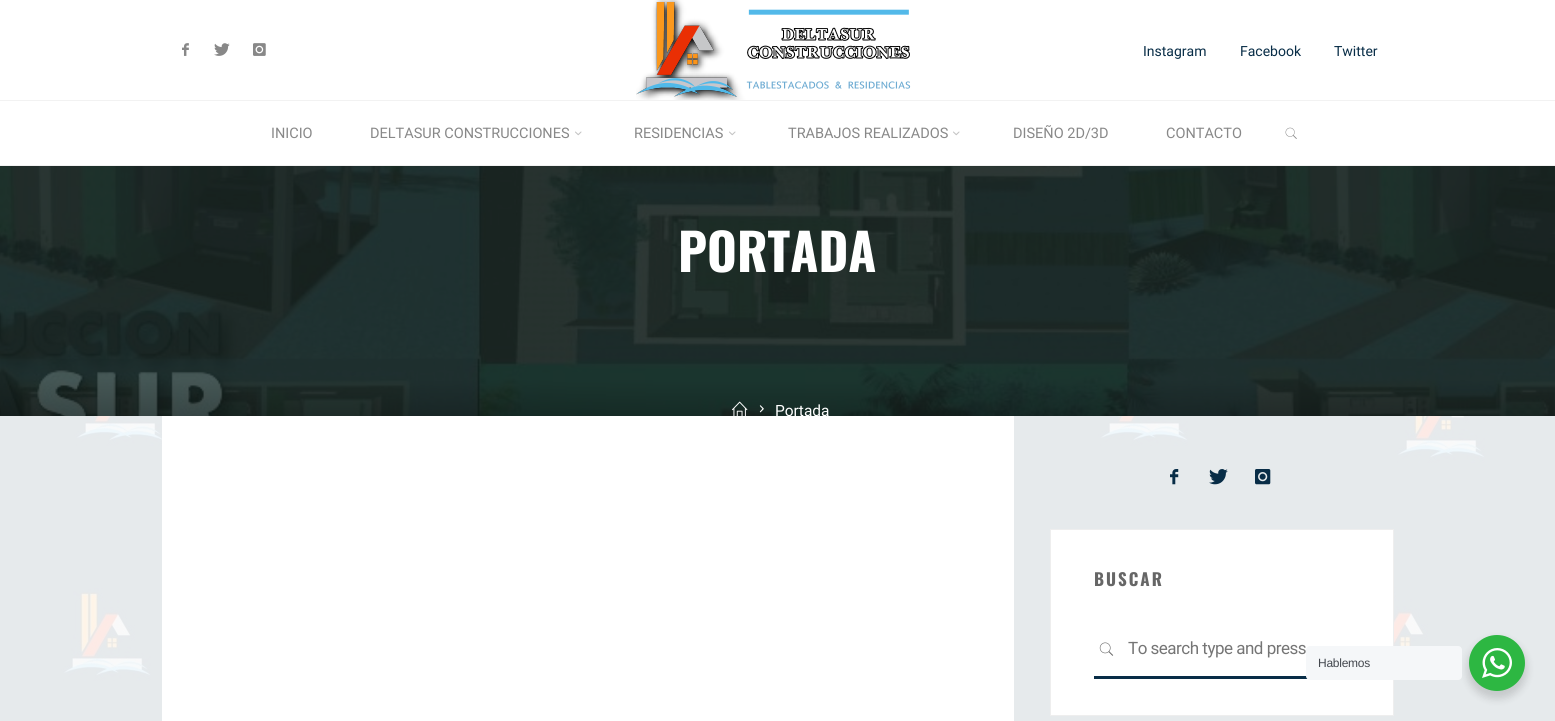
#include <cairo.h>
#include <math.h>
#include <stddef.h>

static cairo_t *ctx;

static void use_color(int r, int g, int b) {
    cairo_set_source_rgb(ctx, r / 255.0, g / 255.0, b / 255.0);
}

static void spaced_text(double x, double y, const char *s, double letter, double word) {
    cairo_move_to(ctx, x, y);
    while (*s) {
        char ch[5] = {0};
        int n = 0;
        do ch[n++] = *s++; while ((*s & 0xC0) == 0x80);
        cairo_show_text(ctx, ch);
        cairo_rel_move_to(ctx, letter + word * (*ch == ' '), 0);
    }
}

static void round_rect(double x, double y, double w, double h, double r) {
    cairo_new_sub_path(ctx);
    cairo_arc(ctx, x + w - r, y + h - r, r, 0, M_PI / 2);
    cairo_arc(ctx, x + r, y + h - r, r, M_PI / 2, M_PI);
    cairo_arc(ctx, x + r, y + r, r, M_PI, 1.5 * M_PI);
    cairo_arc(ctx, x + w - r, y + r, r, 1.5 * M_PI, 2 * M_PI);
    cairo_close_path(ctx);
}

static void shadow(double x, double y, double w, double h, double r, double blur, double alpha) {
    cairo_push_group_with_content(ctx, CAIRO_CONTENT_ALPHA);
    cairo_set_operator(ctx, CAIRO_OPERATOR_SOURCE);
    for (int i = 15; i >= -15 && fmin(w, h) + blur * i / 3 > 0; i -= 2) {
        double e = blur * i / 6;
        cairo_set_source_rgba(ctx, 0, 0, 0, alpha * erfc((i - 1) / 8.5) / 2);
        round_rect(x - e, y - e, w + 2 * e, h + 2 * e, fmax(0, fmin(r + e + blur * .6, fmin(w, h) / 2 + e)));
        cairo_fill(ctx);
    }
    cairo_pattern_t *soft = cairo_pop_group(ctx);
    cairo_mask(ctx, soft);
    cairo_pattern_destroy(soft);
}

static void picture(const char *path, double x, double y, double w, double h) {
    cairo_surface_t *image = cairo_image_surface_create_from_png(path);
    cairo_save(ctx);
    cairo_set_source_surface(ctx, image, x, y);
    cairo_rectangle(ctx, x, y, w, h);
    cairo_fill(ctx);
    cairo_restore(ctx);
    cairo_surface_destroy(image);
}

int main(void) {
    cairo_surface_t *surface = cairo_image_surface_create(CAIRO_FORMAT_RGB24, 1555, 721);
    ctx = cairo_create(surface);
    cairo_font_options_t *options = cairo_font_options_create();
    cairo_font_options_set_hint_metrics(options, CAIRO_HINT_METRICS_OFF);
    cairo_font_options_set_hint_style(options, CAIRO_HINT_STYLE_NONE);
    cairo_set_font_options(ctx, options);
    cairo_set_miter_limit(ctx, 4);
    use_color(255, 255, 255);
    cairo_paint(ctx);
    picture("img1.png", 0, 416, 1555, 305);
    picture("img2.png", 182, 43, 7, 13);
    picture("img3.png", 214, 43, 16, 13);
    picture("img4.png", 253, 43, 13, 13);
    picture("img5.png", 636, 0, 275, 100);
    cairo_select_font_face(ctx, "Roboto", CAIRO_FONT_SLANT_NORMAL, CAIRO_FONT_WEIGHT_NORMAL);
    cairo_set_font_size(ctx, 14);
    use_color(8, 45, 71);
    cairo_move_to(ctx, 1143, 56);
    cairo_show_text(ctx, "Instagram");
    cairo_move_to(ctx, 1240, 56);
    cairo_show_text(ctx, "Facebook");
    cairo_move_to(ctx, 1334, 56);
    cairo_show_text(ctx, "Twitter");
    use_color(242, 242, 242);
    cairo_rectangle(ctx, 0, 100, 1555, 1);
    cairo_fill(ctx);
    cairo_rectangle(ctx, 0, 165, 1555, 1);
    cairo_fill(ctx);
    cairo_set_font_size(ctx, 14.5);
    use_color(136, 136, 136);
    cairo_move_to(ctx, 271, 138);
    cairo_show_text(ctx, "INICIO");
    cairo_move_to(ctx, 370, 138);
    cairo_show_text(ctx, "DELTASUR CONSTRUCCIONES");
    picture("img6.png", 575, 131, 7, 5);
    cairo_move_to(ctx, 634, 138);
    cairo_show_text(ctx, "RESIDENCIAS");
    picture("img6.png", 729, 131, 7, 5);
    cairo_move_to(ctx, 788, 138);
    cairo_show_text(ctx, "TRABAJOS REALIZADOS");
    picture("img6.png", 953, 131, 7, 5);
    cairo_move_to(ctx, 1013, 138);
    cairo_show_text(ctx, "DISEÑO 2D/3D");
    cairo_move_to(ctx, 1166, 138);
    cairo_show_text(ctx, "CONTACTO");
    picture("img7.png", 1285, 127, 12, 12);
    picture("img8.png", 0, 166, 1555, 250);
    cairo_select_font_face(ctx, "Oswald", CAIRO_FONT_SLANT_NORMAL, CAIRO_FONT_WEIGHT_BOLD);
    cairo_set_font_size(ctx, 51);
    use_color(255, 255, 255);
    cairo_move_to(ctx, 678, 272);
    cairo_show_text(ctx, "PORTADA");
    picture("img9.png", 732, 401, 16, 15);
    picture("img10.png", 759, 405, 5, 8);
    cairo_save(ctx);
    cairo_rectangle(ctx, 128, 400, 1300, 16);
    cairo_clip(ctx);
    cairo_select_font_face(ctx, "Roboto", CAIRO_FONT_SLANT_NORMAL, CAIRO_FONT_WEIGHT_NORMAL);
    cairo_set_font_size(ctx, 15.5);
    cairo_move_to(ctx, 775, 416);
    cairo_show_text(ctx, "Portada");
    cairo_restore(ctx);
    cairo_rectangle(ctx, 162, 416, 852, 305);
    cairo_fill(ctx);
    picture("img11.png", 1170, 469, 9, 16);
    picture("img12.png", 1209, 469, 19, 16);
    picture("img13.png", 1255, 469, 16, 16);
    cairo_rectangle(ctx, 1050.5, 529.5, 343, 186);
    cairo_fill_preserve(ctx);
    use_color(238, 238, 238);
    cairo_set_line_width(ctx, 1);
    cairo_stroke(ctx);
    cairo_set_font_size(ctx, 17);
    use_color(102, 102, 102);
    spaced_text(1094, 586, "BUSCAR", 2, 0);
    picture("img14.png", 1099, 642, 15, 14);
    use_color(8, 45, 71);
    cairo_rectangle(ctx, 1094, 676, 214, 3);
    cairo_fill(ctx);
    cairo_select_font_face(ctx, "Roboto", CAIRO_FONT_SLANT_NORMAL, CAIRO_FONT_WEIGHT_NORMAL);
    use_color(117, 117, 117);
    spaced_text(1128, 654, "To search type and press", -0.5, 0);
    use_color(0, 0, 0);
    shadow(1467, 639, 60, 60, 30, 4, 0.14);
    use_color(245, 247, 249);
    round_rect(1306, 646, 156, 34, 4);
    cairo_fill(ctx);
    cairo_select_font_face(ctx, "Liberation Sans", CAIRO_FONT_SLANT_NORMAL, CAIRO_FONT_WEIGHT_NORMAL);
    cairo_set_font_size(ctx, 12);
    use_color(67, 71, 78);
    spaced_text(1318, 667, "Hablemos", -0.25, 0);
    use_color(45, 183, 66);
    cairo_new_path(ctx);
    cairo_arc(ctx, 1497, 663, 28, 0, 2 * M_PI);
    cairo_fill(ctx);
    picture("img15.png", 1482, 648, 30, 30);
    cairo_surface_write_to_png(surface, "result.png");
    cairo_font_options_destroy(options);
    cairo_destroy(ctx);
    cairo_surface_destroy(surface);
    return 0;
}
